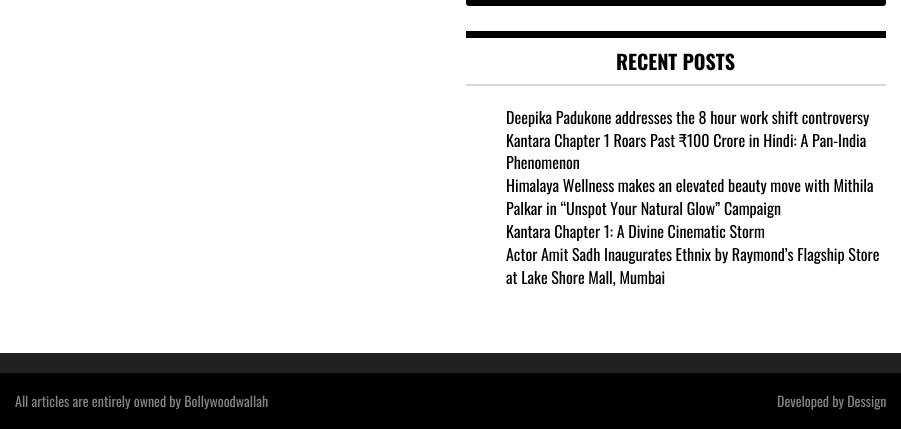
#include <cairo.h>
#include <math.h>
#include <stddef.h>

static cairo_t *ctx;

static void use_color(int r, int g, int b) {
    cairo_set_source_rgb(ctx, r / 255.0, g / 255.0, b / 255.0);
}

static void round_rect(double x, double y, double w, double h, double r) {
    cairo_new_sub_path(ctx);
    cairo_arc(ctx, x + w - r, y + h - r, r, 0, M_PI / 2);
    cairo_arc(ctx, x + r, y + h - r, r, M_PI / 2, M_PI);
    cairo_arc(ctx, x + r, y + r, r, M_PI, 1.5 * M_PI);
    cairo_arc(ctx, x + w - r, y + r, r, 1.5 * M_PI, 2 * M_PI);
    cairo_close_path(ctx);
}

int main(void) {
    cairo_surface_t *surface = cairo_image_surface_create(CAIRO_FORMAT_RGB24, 901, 429);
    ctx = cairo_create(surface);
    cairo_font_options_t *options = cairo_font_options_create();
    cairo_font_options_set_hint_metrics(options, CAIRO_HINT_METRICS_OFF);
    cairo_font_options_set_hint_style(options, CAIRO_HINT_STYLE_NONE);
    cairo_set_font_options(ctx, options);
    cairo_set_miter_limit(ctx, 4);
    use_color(255, 255, 255);
    cairo_paint(ctx);
    use_color(0, 0, 0);
    round_rect(466.5, -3.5, 419, 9, 2.5);
    cairo_fill_preserve(ctx);
    cairo_set_line_width(ctx, 1);
    cairo_stroke(ctx);
    cairo_rectangle(ctx, 466, 31, 420, 7);
    cairo_fill(ctx);
    use_color(215, 215, 215);
    cairo_rectangle(ctx, 466, 84, 420, 2);
    cairo_fill(ctx);
    cairo_select_font_face(ctx, "Oswald", CAIRO_FONT_SLANT_NORMAL, CAIRO_FONT_WEIGHT_BOLD);
    cairo_set_font_size(ctx, 20);
    use_color(0, 0, 0);
    cairo_move_to(ctx, 616, 70);
    cairo_show_text(ctx, "RECENT POSTS");
    cairo_select_font_face(ctx, "Oswald", CAIRO_FONT_SLANT_NORMAL, CAIRO_FONT_WEIGHT_NORMAL);
    cairo_set_font_size(ctx, 16);
    cairo_move_to(ctx, 506, 124);
    cairo_show_text(ctx, "Deepika Padukone addresses the 8 hour work shift controversy");
    cairo_move_to(ctx, 506, 147);
    cairo_show_text(ctx, "Kantara Chapter 1 Roars Past ₹100 Crore in Hindi: A Pan-India");
    cairo_move_to(ctx, 506, 169);
    cairo_show_text(ctx, "Phenomenon");
    cairo_move_to(ctx, 506, 192);
    cairo_show_text(ctx, "Himalaya Wellness makes an elevated beauty move with Mithila");
    cairo_move_to(ctx, 506, 215);
    cairo_show_text(ctx, "Palkar in “Unspot Your Natural Glow” Campaign");
    cairo_move_to(ctx, 506, 238);
    cairo_show_text(ctx, "Kantara Chapter 1: A Divine Cinematic Storm");
    cairo_move_to(ctx, 506, 261);
    cairo_show_text(ctx, "Actor Amit Sadh Inaugurates Ethnix by Raymond’s Flagship Store");
    cairo_move_to(ctx, 506, 284);
    cairo_show_text(ctx, "at Lake Shore Mall, Mumbai");
    use_color(32, 32, 32);
    cairo_rectangle(ctx, 0, 353, 901, 20);
    cairo_fill(ctx);
    use_color(0, 0, 0);
    cairo_rectangle(ctx, 0, 373, 901, 56);
    cairo_fill(ctx);
    cairo_set_font_size(ctx, 14);
    use_color(131, 131, 131);
    cairo_move_to(ctx, 15, 407);
    cairo_show_text(ctx, "All articles are entirely owned by Bollywoodwallah");
    cairo_move_to(ctx, 777, 407);
    cairo_show_text(ctx, "Developed by Dessign");
    cairo_surface_write_to_png(surface, "result.png");
    cairo_font_options_destroy(options);
    cairo_destroy(ctx);
    cairo_surface_destroy(surface);
    return 0;
}
